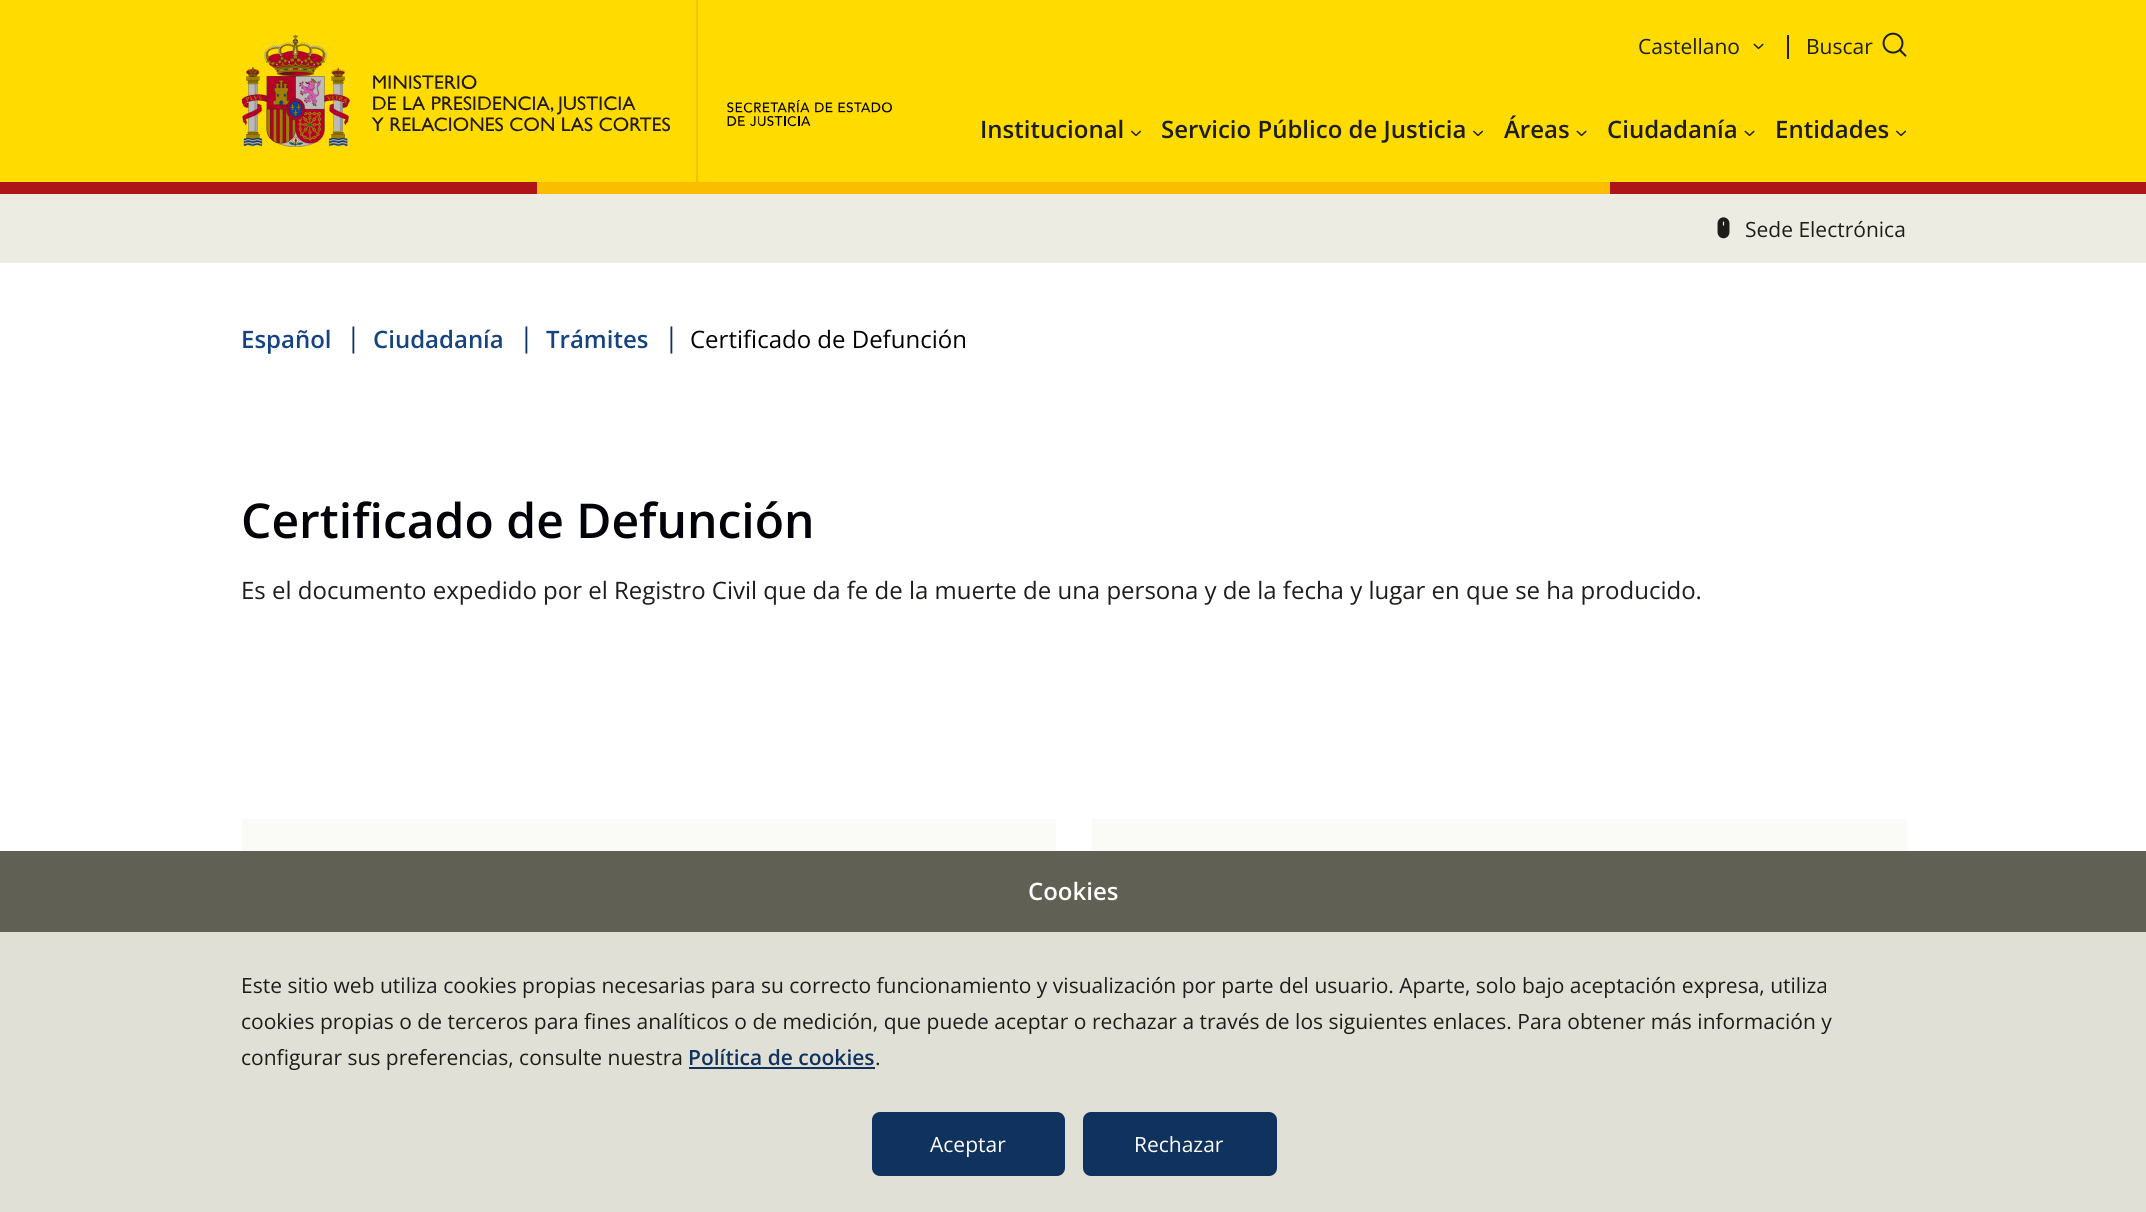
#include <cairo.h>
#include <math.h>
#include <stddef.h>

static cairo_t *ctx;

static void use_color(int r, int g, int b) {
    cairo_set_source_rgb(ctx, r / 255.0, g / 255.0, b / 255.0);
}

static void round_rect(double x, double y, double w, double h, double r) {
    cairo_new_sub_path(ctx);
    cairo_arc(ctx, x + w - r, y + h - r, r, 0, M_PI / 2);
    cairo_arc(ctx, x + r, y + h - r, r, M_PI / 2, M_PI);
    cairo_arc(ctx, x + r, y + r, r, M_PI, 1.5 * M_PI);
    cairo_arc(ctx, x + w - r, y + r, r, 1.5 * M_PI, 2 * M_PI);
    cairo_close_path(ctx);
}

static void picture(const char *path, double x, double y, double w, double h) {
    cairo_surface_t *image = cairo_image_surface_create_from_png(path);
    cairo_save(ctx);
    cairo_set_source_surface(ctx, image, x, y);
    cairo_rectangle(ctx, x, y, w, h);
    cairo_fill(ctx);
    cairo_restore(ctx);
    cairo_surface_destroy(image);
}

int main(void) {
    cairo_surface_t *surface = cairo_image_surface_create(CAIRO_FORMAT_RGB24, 2146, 1212);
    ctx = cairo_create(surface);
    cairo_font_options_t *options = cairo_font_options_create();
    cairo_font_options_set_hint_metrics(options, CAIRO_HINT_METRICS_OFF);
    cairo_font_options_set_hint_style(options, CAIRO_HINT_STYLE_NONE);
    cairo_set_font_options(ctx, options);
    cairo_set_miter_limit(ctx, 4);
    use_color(255, 255, 255);
    cairo_paint(ctx);
    use_color(255, 219, 0);
    cairo_rectangle(ctx, 0, 0, 2146, 182);
    cairo_fill(ctx);
    picture("img1.png", 242, 35, 429, 112);
    use_color(250, 189, 0);
    cairo_rectangle(ctx, 696, 0, 2, 183);
    cairo_fill(ctx);
    picture("img2.png", 727, 99, 165, 28);
    cairo_select_font_face(ctx, "Open Sans", CAIRO_FONT_SLANT_NORMAL, CAIRO_FONT_WEIGHT_NORMAL);
    cairo_set_font_size(ctx, 21);
    use_color(29, 29, 27);
    cairo_move_to(ctx, 1638, 54);
    cairo_show_text(ctx, "Castellano");
    picture("img3.png", 1753, 43, 11, 7);
    cairo_rectangle(ctx, 1787, 35, 2, 24);
    cairo_fill(ctx);
    cairo_move_to(ctx, 1806, 54);
    cairo_show_text(ctx, "Buscar");
    picture("img4.png", 1882, 32, 25, 25);
    cairo_select_font_face(ctx, "Open Sans SemiBold", CAIRO_FONT_SLANT_NORMAL, CAIRO_FONT_WEIGHT_NORMAL);
    cairo_set_font_size(ctx, 24);
    cairo_move_to(ctx, 980, 138);
    cairo_show_text(ctx, "Institucional");
    picture("img5.png", 1131, 130, 10, 7);
    cairo_move_to(ctx, 1161, 138);
    cairo_show_text(ctx, "Servicio Público de Justicia");
    picture("img5.png", 1473, 130, 10, 7);
    cairo_move_to(ctx, 1504, 138);
    cairo_show_text(ctx, "Áreas");
    picture("img3.png", 1576, 130, 11, 7);
    cairo_move_to(ctx, 1607, 138);
    cairo_show_text(ctx, "Ciudadanía");
    picture("img3.png", 1744, 130, 11, 7);
    cairo_move_to(ctx, 1775, 138);
    cairo_show_text(ctx, "Entidades");
    picture("img5.png", 1896, 130, 10, 7);
    use_color(250, 189, 0);
    cairo_rectangle(ctx, 537, 182, 1073, 12);
    cairo_fill(ctx);
    use_color(173, 21, 25);
    cairo_rectangle(ctx, 0, 182, 537, 12);
    cairo_fill(ctx);
    cairo_rectangle(ctx, 1610, 182, 536, 12);
    cairo_fill(ctx);
    use_color(236, 236, 226);
    cairo_rectangle(ctx, 0, 194, 2146, 69);
    cairo_fill(ctx);
    picture("img6.png", 1717, 217, 13, 22);
    cairo_select_font_face(ctx, "Open Sans", CAIRO_FONT_SLANT_NORMAL, CAIRO_FONT_WEIGHT_NORMAL);
    cairo_set_font_size(ctx, 21);
    use_color(29, 29, 27);
    cairo_move_to(ctx, 1745, 237);
    cairo_show_text(ctx, "Sede Electrónica");
    cairo_select_font_face(ctx, "Open Sans SemiBold", CAIRO_FONT_SLANT_NORMAL, CAIRO_FONT_WEIGHT_NORMAL);
    cairo_set_font_size(ctx, 24);
    use_color(21, 68, 129);
    cairo_move_to(ctx, 241, 348);
    cairo_show_text(ctx, "Español");
    cairo_select_font_face(ctx, "Open Sans", CAIRO_FONT_SLANT_NORMAL, CAIRO_FONT_WEIGHT_NORMAL);
    cairo_set_font_size(ctx, 27);
    use_color(16, 50, 95);
    cairo_move_to(ctx, 346, 347);
    cairo_show_text(ctx, "|");
    cairo_select_font_face(ctx, "Open Sans SemiBold", CAIRO_FONT_SLANT_NORMAL, CAIRO_FONT_WEIGHT_NORMAL);
    cairo_set_font_size(ctx, 24);
    use_color(21, 68, 129);
    cairo_move_to(ctx, 373, 348);
    cairo_show_text(ctx, "Ciudadanía");
    cairo_select_font_face(ctx, "Open Sans", CAIRO_FONT_SLANT_NORMAL, CAIRO_FONT_WEIGHT_NORMAL);
    cairo_set_font_size(ctx, 27);
    use_color(16, 50, 95);
    cairo_move_to(ctx, 519, 347);
    cairo_show_text(ctx, "|");
    cairo_select_font_face(ctx, "Open Sans SemiBold", CAIRO_FONT_SLANT_NORMAL, CAIRO_FONT_WEIGHT_NORMAL);
    cairo_set_font_size(ctx, 24);
    use_color(21, 68, 129);
    cairo_move_to(ctx, 546, 348);
    cairo_show_text(ctx, "Trámites");
    cairo_select_font_face(ctx, "Open Sans", CAIRO_FONT_SLANT_NORMAL, CAIRO_FONT_WEIGHT_NORMAL);
    cairo_set_font_size(ctx, 27);
    use_color(16, 50, 95);
    cairo_move_to(ctx, 664, 347);
    cairo_show_text(ctx, "|");
    cairo_set_font_size(ctx, 24);
    use_color(0, 0, 0);
    cairo_move_to(ctx, 690, 348);
    cairo_show_text(ctx, "Certificado de Defunción");
    cairo_select_font_face(ctx, "Open Sans SemiBold", CAIRO_FONT_SLANT_NORMAL, CAIRO_FONT_WEIGHT_NORMAL);
    cairo_set_font_size(ctx, 48);
    use_color(1, 3, 9);
    cairo_move_to(ctx, 241, 538);
    cairo_show_text(ctx, "Certificado de Defunción");
    cairo_select_font_face(ctx, "Open Sans", CAIRO_FONT_SLANT_NORMAL, CAIRO_FONT_WEIGHT_NORMAL);
    cairo_set_font_size(ctx, 24);
    use_color(29, 29, 27);
    cairo_move_to(ctx, 241, 599);
    cairo_show_text(ctx, "Es el documento expedido por el Registro Civil que da fe de la muerte de una persona y de la fecha y lugar en que se ha producido.");
    use_color(250, 250, 247);
    cairo_rectangle(ctx, 242, 819, 814, 32);
    cairo_fill(ctx);
    cairo_rectangle(ctx, 1092, 819, 815, 32);
    cairo_fill(ctx);
    use_color(224, 224, 215);
    cairo_rectangle(ctx, 0, 932, 2146, 280);
    cairo_fill(ctx);
    use_color(96, 96, 85);
    cairo_rectangle(ctx, 0, 851, 2146, 81);
    cairo_fill(ctx);
    cairo_select_font_face(ctx, "Open Sans SemiBold", CAIRO_FONT_SLANT_NORMAL, CAIRO_FONT_WEIGHT_NORMAL);
    use_color(255, 255, 255);
    cairo_move_to(ctx, 1028, 900);
    cairo_show_text(ctx, "Cookies");
    cairo_select_font_face(ctx, "Open Sans", CAIRO_FONT_SLANT_NORMAL, CAIRO_FONT_WEIGHT_NORMAL);
    cairo_set_font_size(ctx, 21);
    use_color(29, 29, 27);
    cairo_move_to(ctx, 241, 993);
    cairo_show_text(ctx, "Este sitio web utiliza cookies propias necesarias para su correcto funcionamiento y visualización por parte del usuario. Aparte, solo bajo aceptación expresa, utiliza");
    cairo_move_to(ctx, 241, 1029);
    cairo_show_text(ctx, "cookies propias o de terceros para fines analíticos o de medición, que puede aceptar o rechazar a través de los siguientes enlaces. Para obtener más información y");
    cairo_move_to(ctx, 241, 1065);
    cairo_show_text(ctx, "configurar sus preferencias, consulte nuestra");
    cairo_select_font_face(ctx, "Open Sans SemiBold", CAIRO_FONT_SLANT_NORMAL, CAIRO_FONT_WEIGHT_NORMAL);
    use_color(16, 50, 95);
    cairo_move_to(ctx, 688, 1065);
    cairo_show_text(ctx, "Política de cookies");
    cairo_rectangle(ctx, 689, 1067, 186, 2);
    cairo_fill(ctx);
    cairo_select_font_face(ctx, "Open Sans", CAIRO_FONT_SLANT_NORMAL, CAIRO_FONT_WEIGHT_NORMAL);
    use_color(29, 29, 27);
    cairo_move_to(ctx, 875, 1065);
    cairo_show_text(ctx, ".");
    use_color(16, 50, 95);
    round_rect(872, 1112, 193, 64, 8);
    cairo_fill(ctx);
    use_color(255, 255, 255);
    cairo_move_to(ctx, 930, 1152);
    cairo_show_text(ctx, "Aceptar");
    use_color(16, 50, 95);
    round_rect(1083, 1112, 194, 64, 8);
    cairo_fill(ctx);
    use_color(255, 255, 255);
    cairo_move_to(ctx, 1134, 1152);
    cairo_show_text(ctx, "Rechazar");
    cairo_surface_write_to_png(surface, "result.png");
    cairo_font_options_destroy(options);
    cairo_destroy(ctx);
    cairo_surface_destroy(surface);
    return 0;
}
